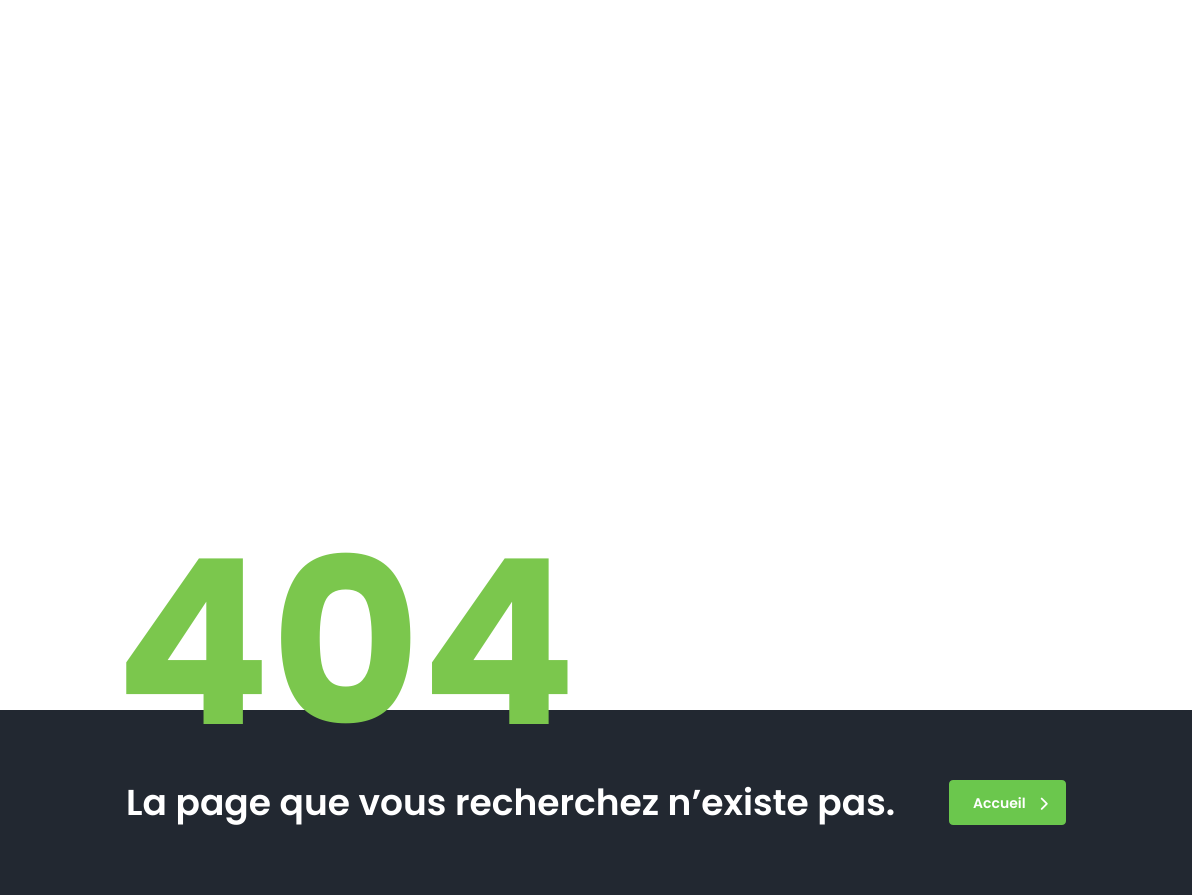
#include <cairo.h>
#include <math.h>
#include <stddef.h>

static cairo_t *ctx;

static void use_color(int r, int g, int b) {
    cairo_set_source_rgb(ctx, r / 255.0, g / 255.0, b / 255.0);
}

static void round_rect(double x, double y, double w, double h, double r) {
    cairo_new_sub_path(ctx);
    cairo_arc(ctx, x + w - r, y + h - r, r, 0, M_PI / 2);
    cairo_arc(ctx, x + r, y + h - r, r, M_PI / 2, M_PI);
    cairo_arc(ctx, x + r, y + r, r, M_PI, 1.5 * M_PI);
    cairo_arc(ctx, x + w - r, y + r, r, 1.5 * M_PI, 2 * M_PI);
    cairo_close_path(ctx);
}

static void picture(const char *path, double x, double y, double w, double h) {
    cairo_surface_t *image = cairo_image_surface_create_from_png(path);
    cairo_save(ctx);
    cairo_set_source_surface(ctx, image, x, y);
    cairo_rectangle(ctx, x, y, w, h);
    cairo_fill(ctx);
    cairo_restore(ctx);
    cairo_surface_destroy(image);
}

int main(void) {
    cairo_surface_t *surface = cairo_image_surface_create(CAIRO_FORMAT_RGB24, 1192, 895);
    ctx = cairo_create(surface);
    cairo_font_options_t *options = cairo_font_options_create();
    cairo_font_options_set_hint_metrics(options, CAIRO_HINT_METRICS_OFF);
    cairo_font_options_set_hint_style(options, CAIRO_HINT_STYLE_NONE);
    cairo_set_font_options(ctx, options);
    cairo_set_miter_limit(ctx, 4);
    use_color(255, 255, 255);
    cairo_paint(ctx);
    use_color(34, 40, 49);
    cairo_rectangle(ctx, 0, 710, 1192, 185);
    cairo_fill(ctx);
    cairo_select_font_face(ctx, "Poppins", CAIRO_FONT_SLANT_NORMAL, CAIRO_FONT_WEIGHT_BOLD);
    cairo_set_font_size(ctx, 230);
    use_color(123, 199, 77);
    cairo_move_to(ctx, 115, 724);
    cairo_show_text(ctx, "404");
    cairo_select_font_face(ctx, "Poppins SemiBold", CAIRO_FONT_SLANT_NORMAL, CAIRO_FONT_WEIGHT_NORMAL);
    cairo_set_font_size(ctx, 36);
    use_color(255, 255, 255);
    cairo_move_to(ctx, 126, 815);
    cairo_show_text(ctx, "La page que vous recherchez n’existe pas.");
    use_color(107, 199, 77);
    round_rect(950.5, 781.5, 114, 42, 2.5);
    cairo_fill_preserve(ctx);
    cairo_set_line_width(ctx, 3);
    cairo_stroke(ctx);
    cairo_set_font_size(ctx, 14);
    use_color(255, 255, 255);
    cairo_move_to(ctx, 973, 808);
    cairo_show_text(ctx, "Accueil");
    picture("img1.png", 1040, 797, 8, 13);
    cairo_surface_write_to_png(surface, "result.png");
    cairo_font_options_destroy(options);
    cairo_destroy(ctx);
    cairo_surface_destroy(surface);
    return 0;
}
